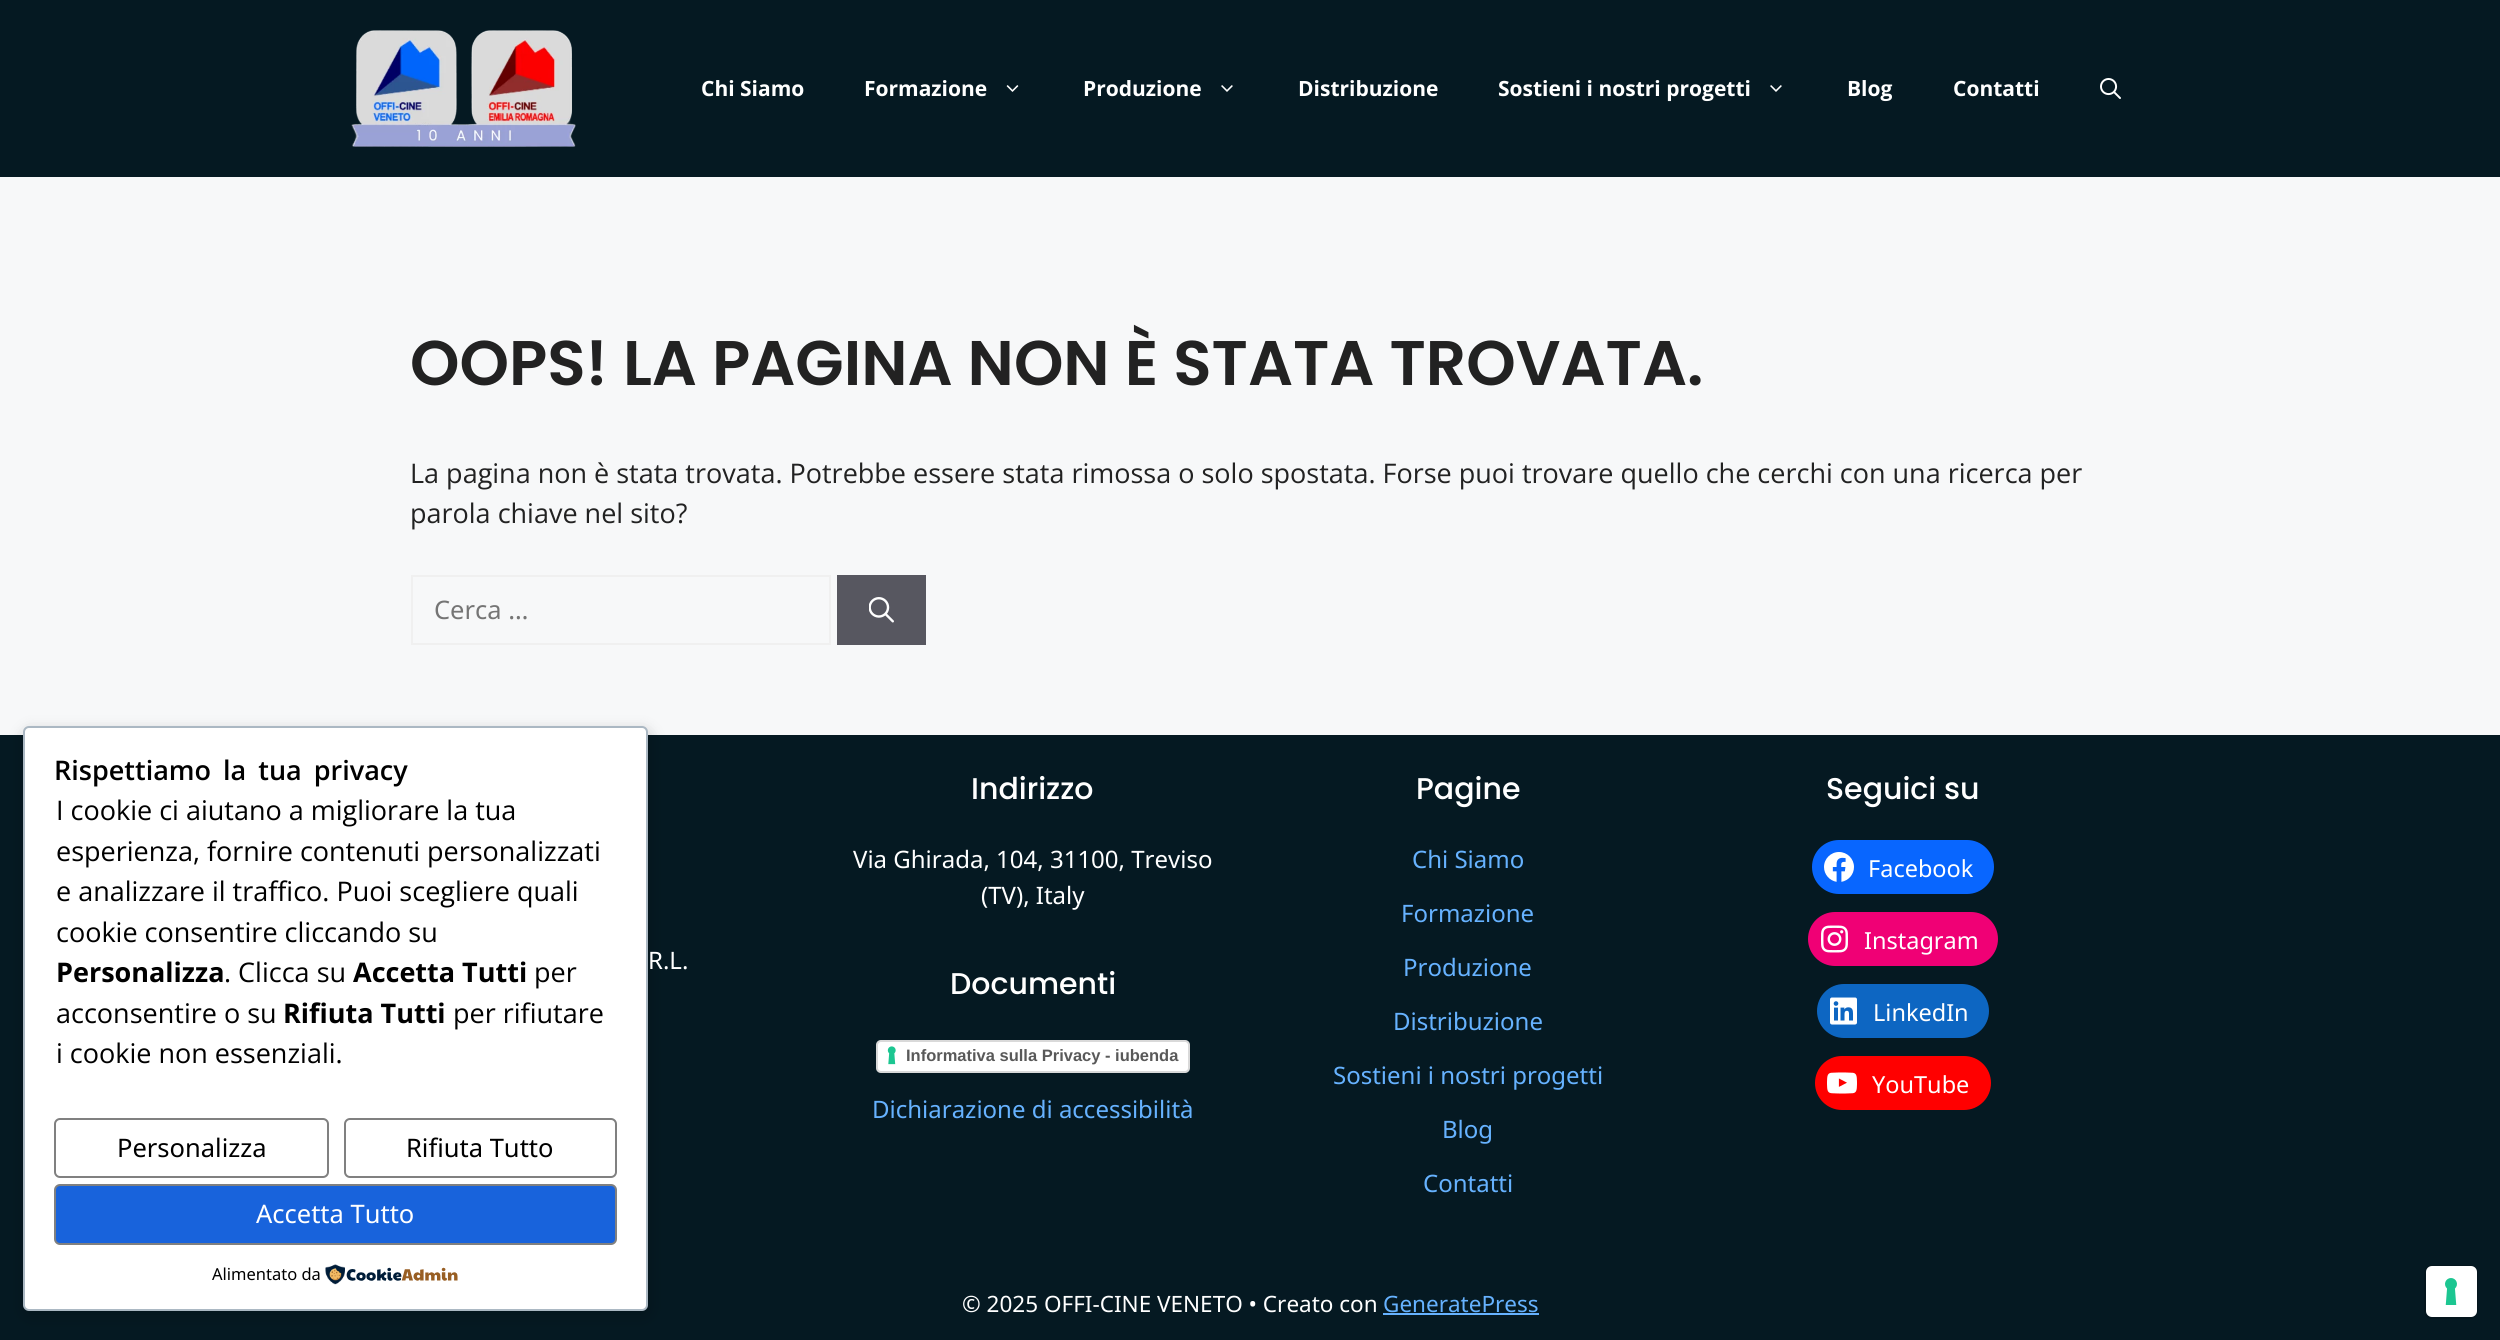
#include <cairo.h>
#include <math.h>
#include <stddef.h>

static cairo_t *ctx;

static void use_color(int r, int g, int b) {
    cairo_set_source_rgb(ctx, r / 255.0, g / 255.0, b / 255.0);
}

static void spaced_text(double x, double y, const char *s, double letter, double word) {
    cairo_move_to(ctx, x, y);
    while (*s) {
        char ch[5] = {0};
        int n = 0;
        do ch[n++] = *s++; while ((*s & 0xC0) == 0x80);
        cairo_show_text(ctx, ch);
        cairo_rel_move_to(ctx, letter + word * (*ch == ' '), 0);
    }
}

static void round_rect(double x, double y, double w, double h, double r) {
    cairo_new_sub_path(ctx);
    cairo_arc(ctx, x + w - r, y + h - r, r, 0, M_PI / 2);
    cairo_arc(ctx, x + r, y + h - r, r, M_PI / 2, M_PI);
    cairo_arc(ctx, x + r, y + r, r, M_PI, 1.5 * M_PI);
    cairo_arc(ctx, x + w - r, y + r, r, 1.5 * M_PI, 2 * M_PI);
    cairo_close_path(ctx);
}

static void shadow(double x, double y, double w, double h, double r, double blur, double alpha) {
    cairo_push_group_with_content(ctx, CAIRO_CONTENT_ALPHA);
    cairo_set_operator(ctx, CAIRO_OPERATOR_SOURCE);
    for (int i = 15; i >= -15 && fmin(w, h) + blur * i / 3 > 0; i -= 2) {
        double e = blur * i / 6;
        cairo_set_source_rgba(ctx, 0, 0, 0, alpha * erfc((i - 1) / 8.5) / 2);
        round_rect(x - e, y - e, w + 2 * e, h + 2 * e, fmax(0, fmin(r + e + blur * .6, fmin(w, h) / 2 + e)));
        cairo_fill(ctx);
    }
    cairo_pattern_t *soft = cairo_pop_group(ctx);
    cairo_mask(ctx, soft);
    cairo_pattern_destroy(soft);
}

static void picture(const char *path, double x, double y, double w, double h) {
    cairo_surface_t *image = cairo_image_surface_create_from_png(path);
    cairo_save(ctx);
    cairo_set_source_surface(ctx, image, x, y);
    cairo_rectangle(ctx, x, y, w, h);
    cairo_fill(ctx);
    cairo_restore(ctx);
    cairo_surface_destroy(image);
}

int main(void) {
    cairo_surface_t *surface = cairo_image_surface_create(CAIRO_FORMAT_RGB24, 2500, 1340);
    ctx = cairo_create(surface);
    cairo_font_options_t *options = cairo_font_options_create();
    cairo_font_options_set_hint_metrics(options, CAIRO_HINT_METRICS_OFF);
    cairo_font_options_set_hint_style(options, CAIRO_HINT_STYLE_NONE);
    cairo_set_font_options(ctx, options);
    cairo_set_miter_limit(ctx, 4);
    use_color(247, 248, 249);
    cairo_paint(ctx);
    use_color(5, 25, 34);
    cairo_rectangle(ctx, 0, 0, 2500, 177);
    cairo_fill(ctx);
    picture("img1.png", 351, 30, 225, 117);
    cairo_select_font_face(ctx, "Open Sans", CAIRO_FONT_SLANT_NORMAL, CAIRO_FONT_WEIGHT_BOLD);
    cairo_set_font_size(ctx, 21);
    use_color(255, 255, 255);
    cairo_move_to(ctx, 701, 96);
    cairo_show_text(ctx, "Chi Siamo");
    cairo_move_to(ctx, 864, 96);
    cairo_show_text(ctx, "Formazione");
    picture("img2.png", 1006, 85, 13, 7);
    cairo_move_to(ctx, 1083, 96);
    cairo_show_text(ctx, "Produzione");
    picture("img3.png", 1221, 85, 12, 7);
    cairo_move_to(ctx, 1298, 96);
    cairo_show_text(ctx, "Distribuzione");
    cairo_move_to(ctx, 1498, 96);
    cairo_show_text(ctx, "Sostieni i nostri progetti");
    picture("img3.png", 1770, 85, 12, 7);
    cairo_move_to(ctx, 1847, 96);
    cairo_show_text(ctx, "Blog");
    cairo_move_to(ctx, 1953, 96);
    cairo_show_text(ctx, "Contatti");
    picture("img4.png", 2100, 78, 21, 21);
    cairo_select_font_face(ctx, "Poppins SemiBold", CAIRO_FONT_SLANT_NORMAL, CAIRO_FONT_WEIGHT_NORMAL);
    cairo_set_font_size(ctx, 63);
    use_color(34, 34, 34);
    cairo_move_to(ctx, 410, 385);
    cairo_show_text(ctx, "OOPS! LA PAGINA NON È STATA TROVATA.");
    cairo_select_font_face(ctx, "Open Sans", CAIRO_FONT_SLANT_NORMAL, CAIRO_FONT_WEIGHT_NORMAL);
    cairo_set_font_size(ctx, 27);
    cairo_move_to(ctx, 410, 483);
    cairo_show_text(ctx, "La pagina non è stata trovata. Potrebbe essere stata rimossa o solo spostata. Forse puoi trovare quello che cerchi con una ricerca per");
    cairo_move_to(ctx, 410, 523);
    cairo_show_text(ctx, "parola chiave nel sito?");
    cairo_rectangle(ctx, 412, 576, 418, 68);
    use_color(240, 240, 240);
    cairo_stroke(ctx);
    cairo_select_font_face(ctx, "Noto Sans", CAIRO_FONT_SLANT_NORMAL, CAIRO_FONT_WEIGHT_NORMAL);
    cairo_set_font_size(ctx, 25.5);
    use_color(117, 117, 117);
    cairo_move_to(ctx, 434, 619);
    cairo_show_text(ctx, "Cerca …");
    use_color(87, 87, 96);
    cairo_rectangle(ctx, 837, 575, 89, 70);
    cairo_fill(ctx);
    picture("img5.png", 869, 597, 25, 26);
    use_color(5, 25, 34);
    cairo_rectangle(ctx, 0, 735, 2500, 605);
    cairo_fill(ctx);
    use_color(0, 0, 0);
    shadow(24, 731, 626, 585, 6, 7.5, 0.2);
    use_color(255, 255, 255);
    round_rect(24, 727, 623, 583, 5);
    cairo_fill_preserve(ctx);
    use_color(171, 184, 195);
    cairo_stroke(ctx);
    cairo_select_font_face(ctx, "Open Sans SemiBold", CAIRO_FONT_SLANT_NORMAL, CAIRO_FONT_WEIGHT_NORMAL);
    cairo_set_font_size(ctx, 27);
    use_color(0, 0, 0);
    spaced_text(54, 780, "Rispettiamo la tua privacy", 0, 5);
    cairo_select_font_face(ctx, "Open Sans", CAIRO_FONT_SLANT_NORMAL, CAIRO_FONT_WEIGHT_NORMAL);
    cairo_move_to(ctx, 56, 820);
    cairo_show_text(ctx, "I cookie ci aiutano a migliorare la tua");
    cairo_move_to(ctx, 56, 861);
    cairo_show_text(ctx, "esperienza, fornire contenuti personalizzati");
    cairo_move_to(ctx, 56, 901);
    cairo_show_text(ctx, "e analizzare il traffico. Puoi scegliere quali");
    cairo_move_to(ctx, 56, 942);
    cairo_show_text(ctx, "cookie consentire cliccando su");
    cairo_select_font_face(ctx, "Open Sans", CAIRO_FONT_SLANT_NORMAL, CAIRO_FONT_WEIGHT_BOLD);
    cairo_move_to(ctx, 56, 982);
    cairo_show_text(ctx, "Personalizza");
    cairo_select_font_face(ctx, "Open Sans", CAIRO_FONT_SLANT_NORMAL, CAIRO_FONT_WEIGHT_NORMAL);
    cairo_move_to(ctx, 224, 982);
    cairo_show_text(ctx, ". Clicca su");
    cairo_select_font_face(ctx, "Open Sans", CAIRO_FONT_SLANT_NORMAL, CAIRO_FONT_WEIGHT_BOLD);
    cairo_move_to(ctx, 353, 982);
    cairo_show_text(ctx, "Accetta Tutti");
    cairo_select_font_face(ctx, "Open Sans", CAIRO_FONT_SLANT_NORMAL, CAIRO_FONT_WEIGHT_NORMAL);
    cairo_move_to(ctx, 534, 982);
    cairo_show_text(ctx, "per");
    cairo_move_to(ctx, 56, 1023);
    cairo_show_text(ctx, "acconsentire o su");
    cairo_select_font_face(ctx, "Open Sans", CAIRO_FONT_SLANT_NORMAL, CAIRO_FONT_WEIGHT_BOLD);
    cairo_move_to(ctx, 283, 1023);
    cairo_show_text(ctx, "Rifiuta Tutti");
    cairo_select_font_face(ctx, "Open Sans", CAIRO_FONT_SLANT_NORMAL, CAIRO_FONT_WEIGHT_NORMAL);
    cairo_move_to(ctx, 453, 1023);
    cairo_show_text(ctx, "per rifiutare");
    cairo_move_to(ctx, 56, 1063);
    cairo_show_text(ctx, "i cookie non essenziali.");
    round_rect(55, 1119, 273, 58, 5);
    use_color(128, 128, 128);
    cairo_stroke(ctx);
    cairo_select_font_face(ctx, "Noto Sans", CAIRO_FONT_SLANT_NORMAL, CAIRO_FONT_WEIGHT_NORMAL);
    cairo_set_font_size(ctx, 25.5);
    use_color(0, 0, 0);
    cairo_move_to(ctx, 117, 1157);
    cairo_show_text(ctx, "Personalizza");
    round_rect(345, 1119, 271, 58, 5);
    use_color(128, 128, 128);
    cairo_stroke(ctx);
    use_color(0, 0, 0);
    cairo_move_to(ctx, 406, 1157);
    cairo_show_text(ctx, "Rifiuta Tutto");
    use_color(24, 99, 220);
    round_rect(55, 1185, 561, 59, 5);
    cairo_fill_preserve(ctx);
    use_color(128, 128, 128);
    cairo_stroke(ctx);
    use_color(255, 255, 255);
    cairo_move_to(ctx, 256, 1223);
    cairo_show_text(ctx, "Accetta Tutto");
    cairo_set_font_size(ctx, 16.5);
    use_color(0, 0, 0);
    cairo_move_to(ctx, 212, 1280);
    cairo_show_text(ctx, "Alimentato da");
    picture("img6.png", 325, 1264, 133, 21);
    cairo_set_font_size(ctx, 24);
    use_color(255, 255, 255);
    cairo_move_to(ctx, 648, 969);
    cairo_show_text(ctx, "R.L.");
    cairo_select_font_face(ctx, "Poppins Medium", CAIRO_FONT_SLANT_NORMAL, CAIRO_FONT_WEIGHT_NORMAL);
    cairo_set_font_size(ctx, 30);
    cairo_move_to(ctx, 971, 799);
    cairo_show_text(ctx, "Indirizzo");
    cairo_select_font_face(ctx, "Noto Sans", CAIRO_FONT_SLANT_NORMAL, CAIRO_FONT_WEIGHT_NORMAL);
    cairo_set_font_size(ctx, 24);
    cairo_move_to(ctx, 853, 868);
    cairo_show_text(ctx, "Via Ghirada, 104, 31100, Treviso");
    cairo_move_to(ctx, 981, 904);
    cairo_show_text(ctx, "(TV), Italy");
    cairo_select_font_face(ctx, "Poppins Medium", CAIRO_FONT_SLANT_NORMAL, CAIRO_FONT_WEIGHT_NORMAL);
    cairo_set_font_size(ctx, 30);
    cairo_move_to(ctx, 950, 994);
    cairo_show_text(ctx, "Documenti");
    round_rect(876, 1040, 314, 33, 5);
    cairo_fill(ctx);
    picture("img7.png", 887, 1046, 9, 19);
    round_rect(877, 1041, 312, 31, 4);
    cairo_set_source_rgba(ctx, 0, 0, 0, 0.15);
    cairo_stroke(ctx);
    cairo_select_font_face(ctx, "Liberation Sans", CAIRO_FONT_SLANT_NORMAL, CAIRO_FONT_WEIGHT_BOLD);
    cairo_set_font_size(ctx, 16.5);
    use_color(89, 89, 89);
    cairo_move_to(ctx, 906, 1061);
    cairo_show_text(ctx, "Informativa sulla Privacy - iubenda");
    cairo_select_font_face(ctx, "Noto Sans", CAIRO_FONT_SLANT_NORMAL, CAIRO_FONT_WEIGHT_NORMAL);
    cairo_set_font_size(ctx, 24);
    use_color(102, 178, 255);
    cairo_move_to(ctx, 872, 1118);
    cairo_show_text(ctx, "Dichiarazione di accessibilità");
    cairo_select_font_face(ctx, "Poppins Medium", CAIRO_FONT_SLANT_NORMAL, CAIRO_FONT_WEIGHT_NORMAL);
    cairo_set_font_size(ctx, 30);
    use_color(255, 255, 255);
    cairo_move_to(ctx, 1416, 799);
    cairo_show_text(ctx, "Pagine");
    cairo_select_font_face(ctx, "Noto Sans", CAIRO_FONT_SLANT_NORMAL, CAIRO_FONT_WEIGHT_NORMAL);
    cairo_set_font_size(ctx, 24);
    use_color(102, 178, 255);
    cairo_move_to(ctx, 1412, 868);
    cairo_show_text(ctx, "Chi Siamo");
    cairo_move_to(ctx, 1401, 922);
    cairo_show_text(ctx, "Formazione");
    cairo_move_to(ctx, 1403, 976);
    cairo_show_text(ctx, "Produzione");
    cairo_move_to(ctx, 1393, 1030);
    cairo_show_text(ctx, "Distribuzione");
    cairo_move_to(ctx, 1333, 1084);
    cairo_show_text(ctx, "Sostieni i nostri progetti");
    cairo_move_to(ctx, 1442, 1138);
    cairo_show_text(ctx, "Blog");
    cairo_move_to(ctx, 1423, 1192);
    cairo_show_text(ctx, "Contatti");
    cairo_select_font_face(ctx, "Poppins Medium", CAIRO_FONT_SLANT_NORMAL, CAIRO_FONT_WEIGHT_NORMAL);
    cairo_set_font_size(ctx, 30);
    use_color(255, 255, 255);
    cairo_move_to(ctx, 1826, 799);
    cairo_show_text(ctx, "Seguici su");
    use_color(8, 102, 255);
    round_rect(1812, 840, 182, 54, 27);
    cairo_fill(ctx);
    picture("img8.png", 1824, 852, 30, 30);
    cairo_select_font_face(ctx, "Noto Sans", CAIRO_FONT_SLANT_NORMAL, CAIRO_FONT_WEIGHT_NORMAL);
    cairo_set_font_size(ctx, 23.5);
    use_color(255, 255, 255);
    cairo_move_to(ctx, 1868, 877);
    cairo_show_text(ctx, "Facebook");
    use_color(240, 0, 117);
    round_rect(1808, 912, 190, 54, 27);
    cairo_fill(ctx);
    picture("img9.png", 1821, 925, 27, 28);
    use_color(255, 255, 255);
    cairo_move_to(ctx, 1864, 949);
    cairo_show_text(ctx, "Instagram");
    use_color(13, 102, 194);
    round_rect(1817, 984, 172, 54, 27);
    cairo_fill(ctx);
    picture("img10.png", 1830, 997, 27, 28);
    use_color(255, 255, 255);
    cairo_move_to(ctx, 1873, 1021);
    cairo_show_text(ctx, "LinkedIn");
    use_color(255, 0, 0);
    round_rect(1815, 1056, 176, 54, 27);
    cairo_fill(ctx);
    picture("img11.png", 1827, 1072, 30, 22);
    use_color(255, 255, 255);
    cairo_move_to(ctx, 1872, 1093);
    cairo_show_text(ctx, "YouTube");
    cairo_set_font_size(ctx, 22.5);
    cairo_move_to(ctx, 962, 1312);
    cairo_show_text(ctx, "© 2025 OFFI-CINE VENETO • Creato con");
    use_color(102, 178, 255);
    cairo_move_to(ctx, 1383, 1312);
    cairo_show_text(ctx, "GeneratePress");
    cairo_rectangle(ctx, 1383, 1313, 156, 2);
    cairo_fill(ctx);
    round_rect(2425, 1266, 52, 52, 7);
    use_color(4, 21, 29);
    cairo_stroke(ctx);
    use_color(255, 255, 255);
    round_rect(2426, 1266, 51, 51, 6);
    cairo_fill(ctx);
    picture("img12.png", 2445, 1278, 12, 27);
    cairo_surface_write_to_png(surface, "result.png");
    cairo_font_options_destroy(options);
    cairo_destroy(ctx);
    cairo_surface_destroy(surface);
    return 0;
}
